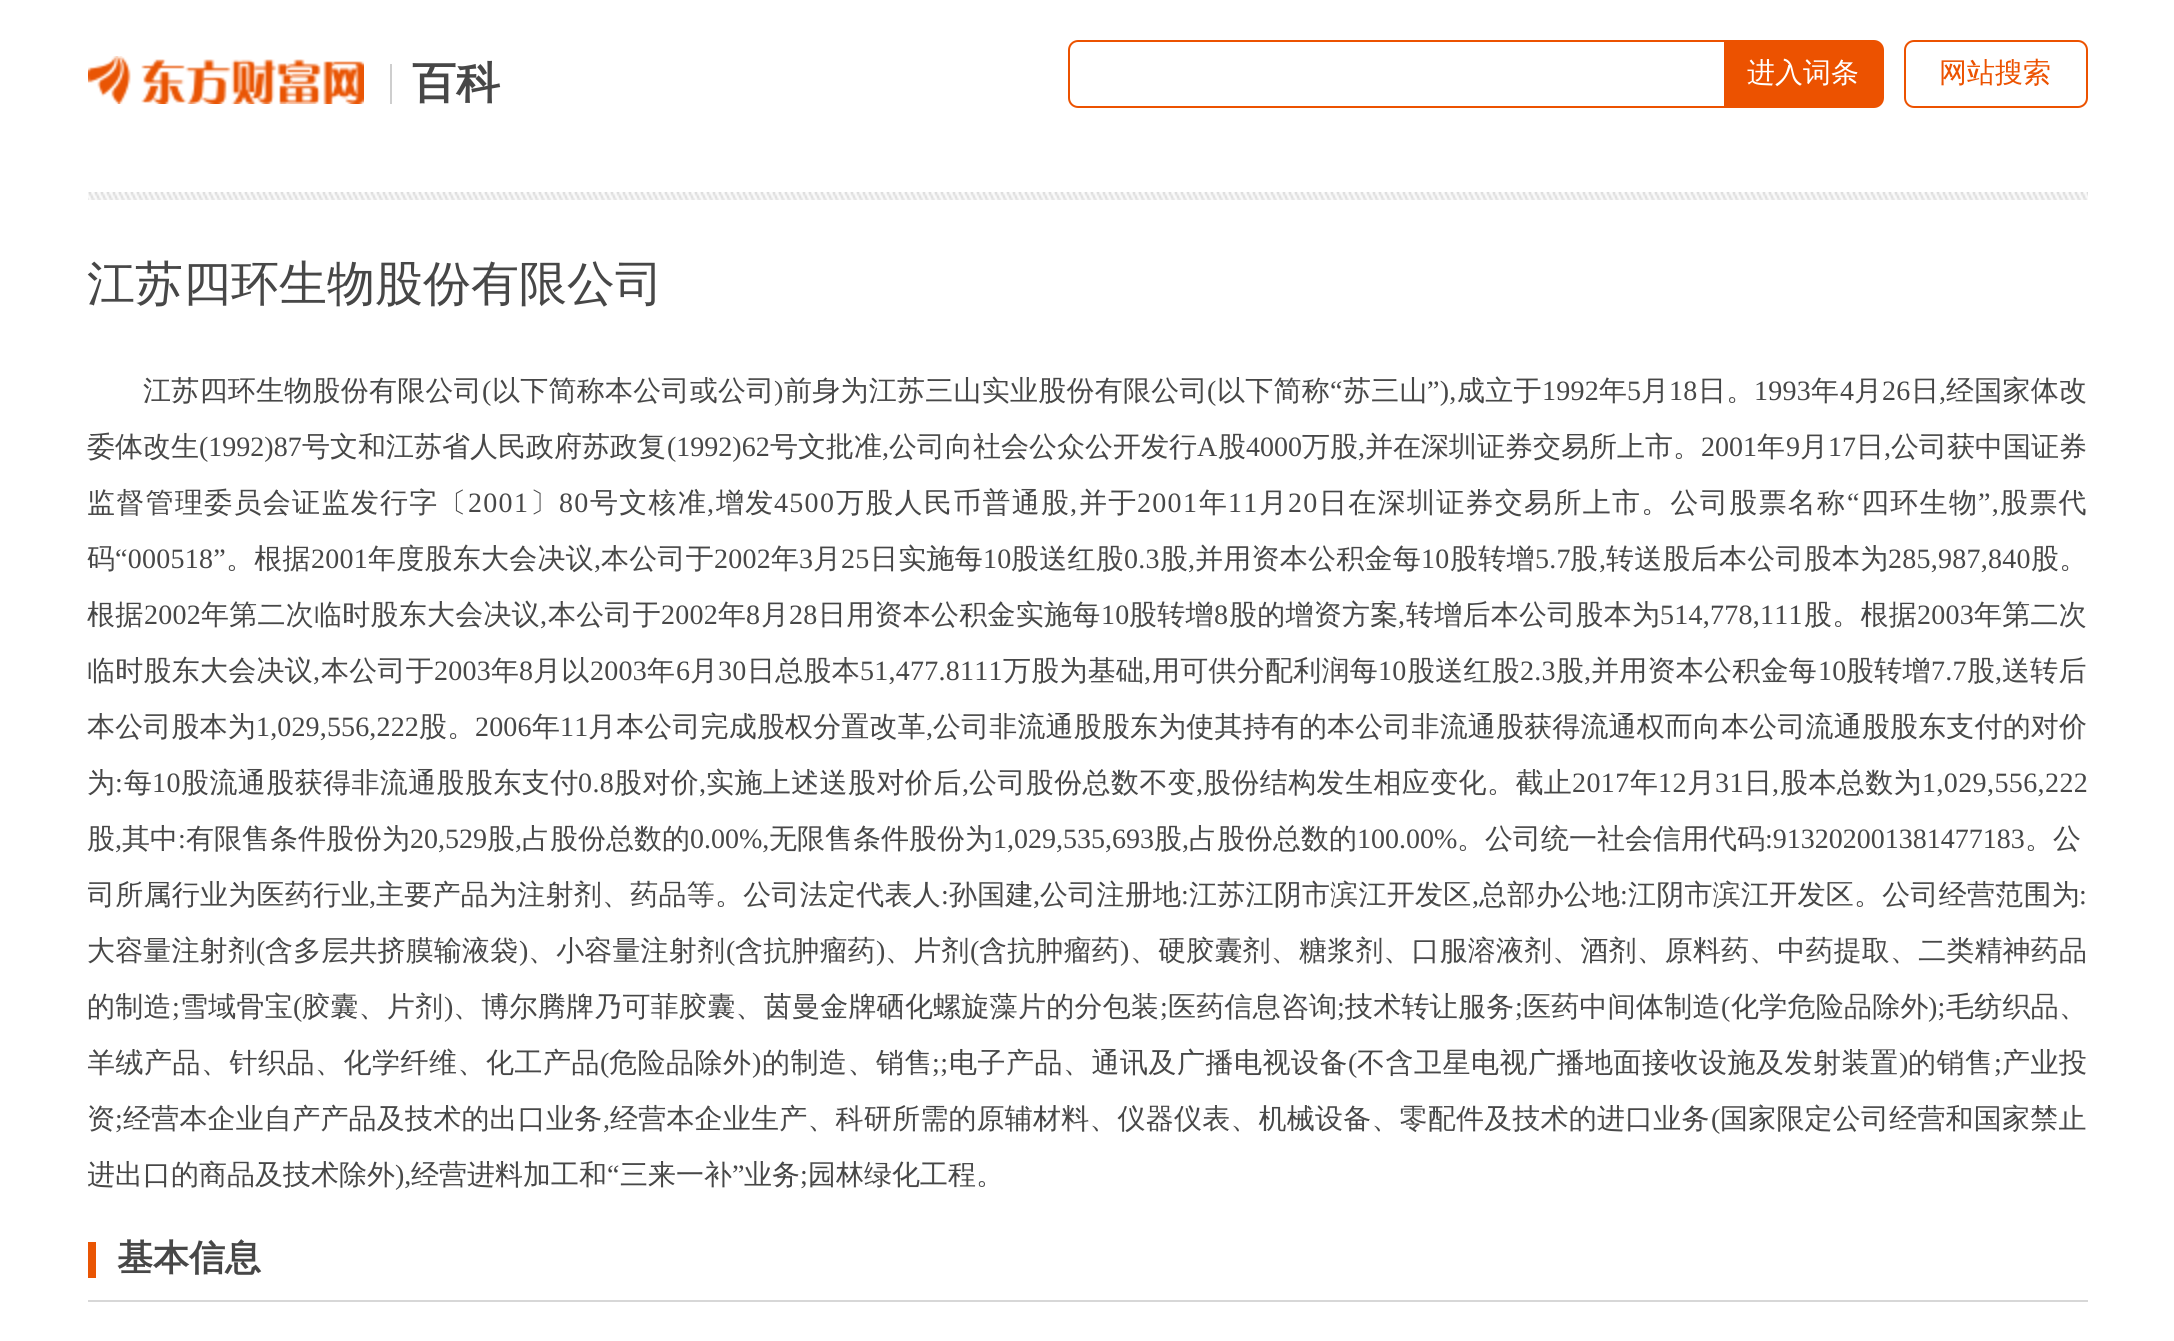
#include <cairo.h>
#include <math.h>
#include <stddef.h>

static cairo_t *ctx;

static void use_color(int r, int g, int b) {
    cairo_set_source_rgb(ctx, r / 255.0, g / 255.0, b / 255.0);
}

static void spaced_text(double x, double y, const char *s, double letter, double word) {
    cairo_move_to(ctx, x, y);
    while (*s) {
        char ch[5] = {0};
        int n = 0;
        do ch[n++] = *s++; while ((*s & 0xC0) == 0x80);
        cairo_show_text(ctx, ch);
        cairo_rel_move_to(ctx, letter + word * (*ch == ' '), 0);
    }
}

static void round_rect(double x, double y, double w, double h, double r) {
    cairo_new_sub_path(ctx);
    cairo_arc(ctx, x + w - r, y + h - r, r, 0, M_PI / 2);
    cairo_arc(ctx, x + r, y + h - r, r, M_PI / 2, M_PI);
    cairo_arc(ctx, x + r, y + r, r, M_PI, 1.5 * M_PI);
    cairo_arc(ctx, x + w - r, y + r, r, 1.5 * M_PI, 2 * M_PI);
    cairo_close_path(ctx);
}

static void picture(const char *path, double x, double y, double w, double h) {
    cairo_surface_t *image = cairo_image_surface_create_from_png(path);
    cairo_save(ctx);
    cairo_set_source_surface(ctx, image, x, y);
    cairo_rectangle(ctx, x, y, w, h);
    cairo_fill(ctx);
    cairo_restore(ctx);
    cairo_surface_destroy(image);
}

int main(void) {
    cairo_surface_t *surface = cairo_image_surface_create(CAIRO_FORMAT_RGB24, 2174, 1341);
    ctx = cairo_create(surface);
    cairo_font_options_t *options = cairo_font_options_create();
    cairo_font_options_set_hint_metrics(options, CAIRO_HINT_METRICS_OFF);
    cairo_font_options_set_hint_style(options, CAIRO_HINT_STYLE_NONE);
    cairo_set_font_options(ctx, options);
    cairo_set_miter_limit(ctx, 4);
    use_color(255, 255, 255);
    cairo_paint(ctx);
    picture("img1.png", 88, 192, 2000, 8);
    picture("img2.png", 88, 56, 276, 48);
    use_color(206, 206, 206);
    cairo_rectangle(ctx, 390, 64, 2, 40);
    cairo_fill(ctx);
    cairo_select_font_face(ctx, "WenQuanYi Zen Hei", CAIRO_FONT_SLANT_NORMAL, CAIRO_FONT_WEIGHT_BOLD);
    cairo_set_font_size(ctx, 44);
    use_color(71, 71, 71);
    cairo_move_to(ctx, 412, 98);
    cairo_show_text(ctx, "百科");
    round_rect(1069, 41, 666, 66, 9);
    use_color(236, 82, 0);
    cairo_stroke(ctx);
    cairo_new_path(ctx);
    cairo_move_to(ctx, 1724, 40);
    cairo_line_to(ctx, 1874, 40);
    cairo_curve_to(ctx, 1879.5, 40, 1884, 44.5, 1884, 50);
    cairo_line_to(ctx, 1884, 98);
    cairo_curve_to(ctx, 1884, 103.5, 1879.5, 108, 1874, 108);
    cairo_line_to(ctx, 1724, 108);
    cairo_close_path(ctx);
    cairo_fill(ctx);
    cairo_select_font_face(ctx, "WenQuanYi Zen Hei Medium", CAIRO_FONT_SLANT_NORMAL, CAIRO_FONT_WEIGHT_NORMAL);
    cairo_set_font_size(ctx, 28);
    use_color(255, 255, 255);
    cairo_move_to(ctx, 1747, 82);
    cairo_show_text(ctx, "进入词条");
    round_rect(1905, 41, 182, 66, 9);
    use_color(236, 82, 0);
    cairo_stroke(ctx);
    cairo_move_to(ctx, 1939, 82);
    cairo_show_text(ctx, "网站搜索");
    cairo_set_font_size(ctx, 48);
    use_color(71, 71, 71);
    cairo_move_to(ctx, 87, 300);
    cairo_show_text(ctx, "江苏四环生物股份有限公司");
    cairo_set_font_size(ctx, 28);
    spaced_text(143, 400, "江苏四环生物股份有限公司", 0.25, 0);
    cairo_select_font_face(ctx, "Liberation Serif", CAIRO_FONT_SLANT_NORMAL, CAIRO_FONT_WEIGHT_NORMAL);
    spaced_text(482, 400, "(", 0.25, 0);
    cairo_select_font_face(ctx, "WenQuanYi Zen Hei Medium", CAIRO_FONT_SLANT_NORMAL, CAIRO_FONT_WEIGHT_NORMAL);
    spaced_text(492, 400, "以下简称本公司或公司", 0.25, 0);
    cairo_select_font_face(ctx, "Liberation Serif", CAIRO_FONT_SLANT_NORMAL, CAIRO_FONT_WEIGHT_NORMAL);
    spaced_text(774, 400, ")", 0.25, 0);
    cairo_select_font_face(ctx, "WenQuanYi Zen Hei Medium", CAIRO_FONT_SLANT_NORMAL, CAIRO_FONT_WEIGHT_NORMAL);
    spaced_text(784, 400, "前身为江苏三山实业股份有限公司", 0.25, 0);
    cairo_select_font_face(ctx, "Liberation Serif", CAIRO_FONT_SLANT_NORMAL, CAIRO_FONT_WEIGHT_NORMAL);
    spaced_text(1207, 400, "(", 0.25, 0);
    cairo_select_font_face(ctx, "WenQuanYi Zen Hei Medium", CAIRO_FONT_SLANT_NORMAL, CAIRO_FONT_WEIGHT_NORMAL);
    spaced_text(1217, 400, "以下简称", 0.25, 0);
    cairo_select_font_face(ctx, "Liberation Serif", CAIRO_FONT_SLANT_NORMAL, CAIRO_FONT_WEIGHT_NORMAL);
    spaced_text(1330, 400, "“", 0.25, 0);
    cairo_select_font_face(ctx, "WenQuanYi Zen Hei Medium", CAIRO_FONT_SLANT_NORMAL, CAIRO_FONT_WEIGHT_NORMAL);
    spaced_text(1343, 400, "苏三山", 0.25, 0);
    cairo_select_font_face(ctx, "Liberation Serif", CAIRO_FONT_SLANT_NORMAL, CAIRO_FONT_WEIGHT_NORMAL);
    spaced_text(1427, 400, "”),", 0.25, 0);
    cairo_select_font_face(ctx, "WenQuanYi Zen Hei Medium", CAIRO_FONT_SLANT_NORMAL, CAIRO_FONT_WEIGHT_NORMAL);
    spaced_text(1457, 400, "成立于", 0.25, 0);
    cairo_select_font_face(ctx, "Liberation Serif", CAIRO_FONT_SLANT_NORMAL, CAIRO_FONT_WEIGHT_NORMAL);
    spaced_text(1542, 400, "1992", 0.25, 0);
    cairo_select_font_face(ctx, "WenQuanYi Zen Hei Medium", CAIRO_FONT_SLANT_NORMAL, CAIRO_FONT_WEIGHT_NORMAL);
    spaced_text(1599, 400, "年", 0.25, 0);
    cairo_select_font_face(ctx, "Liberation Serif", CAIRO_FONT_SLANT_NORMAL, CAIRO_FONT_WEIGHT_NORMAL);
    spaced_text(1627, 400, "5", 0.25, 0);
    cairo_select_font_face(ctx, "WenQuanYi Zen Hei Medium", CAIRO_FONT_SLANT_NORMAL, CAIRO_FONT_WEIGHT_NORMAL);
    spaced_text(1641, 400, "月", 0.25, 0);
    cairo_select_font_face(ctx, "Liberation Serif", CAIRO_FONT_SLANT_NORMAL, CAIRO_FONT_WEIGHT_NORMAL);
    spaced_text(1669, 400, "18", 0.25, 0);
    cairo_select_font_face(ctx, "WenQuanYi Zen Hei Medium", CAIRO_FONT_SLANT_NORMAL, CAIRO_FONT_WEIGHT_NORMAL);
    spaced_text(1698, 400, "日。", 0.25, 0);
    cairo_select_font_face(ctx, "Liberation Serif", CAIRO_FONT_SLANT_NORMAL, CAIRO_FONT_WEIGHT_NORMAL);
    spaced_text(1754, 400, "1993", 0.25, 0);
    cairo_select_font_face(ctx, "WenQuanYi Zen Hei Medium", CAIRO_FONT_SLANT_NORMAL, CAIRO_FONT_WEIGHT_NORMAL);
    spaced_text(1811, 400, "年", 0.25, 0);
    cairo_select_font_face(ctx, "Liberation Serif", CAIRO_FONT_SLANT_NORMAL, CAIRO_FONT_WEIGHT_NORMAL);
    spaced_text(1840, 400, "4", 0.25, 0);
    cairo_select_font_face(ctx, "WenQuanYi Zen Hei Medium", CAIRO_FONT_SLANT_NORMAL, CAIRO_FONT_WEIGHT_NORMAL);
    spaced_text(1854, 400, "月", 0.25, 0);
    cairo_select_font_face(ctx, "Liberation Serif", CAIRO_FONT_SLANT_NORMAL, CAIRO_FONT_WEIGHT_NORMAL);
    spaced_text(1882, 400, "26", 0.25, 0);
    cairo_select_font_face(ctx, "WenQuanYi Zen Hei Medium", CAIRO_FONT_SLANT_NORMAL, CAIRO_FONT_WEIGHT_NORMAL);
    spaced_text(1911, 400, "日", 0.25, 0);
    cairo_select_font_face(ctx, "Liberation Serif", CAIRO_FONT_SLANT_NORMAL, CAIRO_FONT_WEIGHT_NORMAL);
    spaced_text(1939, 400, ",", 0.25, 0);
    cairo_select_font_face(ctx, "WenQuanYi Zen Hei Medium", CAIRO_FONT_SLANT_NORMAL, CAIRO_FONT_WEIGHT_NORMAL);
    spaced_text(1946, 400, "经国家体改", 0.25, 0);
    cairo_move_to(ctx, 87, 456);
    cairo_show_text(ctx, "委体改生");
    cairo_select_font_face(ctx, "Liberation Serif", CAIRO_FONT_SLANT_NORMAL, CAIRO_FONT_WEIGHT_NORMAL);
    cairo_move_to(ctx, 199, 456);
    cairo_show_text(ctx, "(1992)87");
    cairo_select_font_face(ctx, "WenQuanYi Zen Hei Medium", CAIRO_FONT_SLANT_NORMAL, CAIRO_FONT_WEIGHT_NORMAL);
    cairo_move_to(ctx, 302, 456);
    cairo_show_text(ctx, "号文和江苏省人民政府苏政复");
    cairo_select_font_face(ctx, "Liberation Serif", CAIRO_FONT_SLANT_NORMAL, CAIRO_FONT_WEIGHT_NORMAL);
    cairo_move_to(ctx, 667, 456);
    cairo_show_text(ctx, "(1992)62");
    cairo_select_font_face(ctx, "WenQuanYi Zen Hei Medium", CAIRO_FONT_SLANT_NORMAL, CAIRO_FONT_WEIGHT_NORMAL);
    cairo_move_to(ctx, 770, 456);
    cairo_show_text(ctx, "号文批准");
    cairo_move_to(ctx, 889, 456);
    cairo_show_text(ctx, "公司向社会公众公开发行");
    cairo_select_font_face(ctx, "Liberation Serif", CAIRO_FONT_SLANT_NORMAL, CAIRO_FONT_WEIGHT_NORMAL);
    cairo_move_to(ctx, 1197, 456);
    cairo_show_text(ctx, "A");
    cairo_select_font_face(ctx, "WenQuanYi Zen Hei Medium", CAIRO_FONT_SLANT_NORMAL, CAIRO_FONT_WEIGHT_NORMAL);
    cairo_move_to(ctx, 1218, 456);
    cairo_show_text(ctx, "股");
    cairo_select_font_face(ctx, "Liberation Serif", CAIRO_FONT_SLANT_NORMAL, CAIRO_FONT_WEIGHT_NORMAL);
    cairo_move_to(ctx, 1246, 456);
    cairo_show_text(ctx, "4000");
    cairo_select_font_face(ctx, "WenQuanYi Zen Hei Medium", CAIRO_FONT_SLANT_NORMAL, CAIRO_FONT_WEIGHT_NORMAL);
    cairo_move_to(ctx, 1302, 456);
    cairo_show_text(ctx, "万股");
    cairo_move_to(ctx, 1365, 456);
    cairo_show_text(ctx, "并在深圳证券交易所上市。");
    cairo_select_font_face(ctx, "Liberation Serif", CAIRO_FONT_SLANT_NORMAL, CAIRO_FONT_WEIGHT_NORMAL);
    cairo_move_to(ctx, 1701, 456);
    cairo_show_text(ctx, "2001");
    cairo_select_font_face(ctx, "WenQuanYi Zen Hei Medium", CAIRO_FONT_SLANT_NORMAL, CAIRO_FONT_WEIGHT_NORMAL);
    cairo_move_to(ctx, 1757, 456);
    cairo_show_text(ctx, "年");
    cairo_select_font_face(ctx, "Liberation Serif", CAIRO_FONT_SLANT_NORMAL, CAIRO_FONT_WEIGHT_NORMAL);
    cairo_move_to(ctx, 1786, 456);
    cairo_show_text(ctx, "9");
    cairo_select_font_face(ctx, "WenQuanYi Zen Hei Medium", CAIRO_FONT_SLANT_NORMAL, CAIRO_FONT_WEIGHT_NORMAL);
    cairo_move_to(ctx, 1800, 456);
    cairo_show_text(ctx, "月");
    cairo_select_font_face(ctx, "Liberation Serif", CAIRO_FONT_SLANT_NORMAL, CAIRO_FONT_WEIGHT_NORMAL);
    cairo_move_to(ctx, 1828, 456);
    cairo_show_text(ctx, "17");
    cairo_select_font_face(ctx, "WenQuanYi Zen Hei Medium", CAIRO_FONT_SLANT_NORMAL, CAIRO_FONT_WEIGHT_NORMAL);
    cairo_move_to(ctx, 1856, 456);
    cairo_show_text(ctx, "日");
    cairo_move_to(ctx, 1891, 456);
    cairo_show_text(ctx, "公司获中国证券");
    cairo_select_font_face(ctx, "Liberation Serif", CAIRO_FONT_SLANT_NORMAL, CAIRO_FONT_WEIGHT_NORMAL);
    cairo_move_to(ctx, 882, 456);
    cairo_show_text(ctx, ",");
    cairo_move_to(ctx, 1358, 456);
    cairo_show_text(ctx, ",");
    cairo_move_to(ctx, 1884, 456);
    cairo_show_text(ctx, ",");
    cairo_select_font_face(ctx, "WenQuanYi Zen Hei Medium", CAIRO_FONT_SLANT_NORMAL, CAIRO_FONT_WEIGHT_NORMAL);
    spaced_text(87, 512, "监督管理委员会证监发行字〔", 1.3, 0);
    cairo_select_font_face(ctx, "Liberation Serif", CAIRO_FONT_SLANT_NORMAL, CAIRO_FONT_WEIGHT_NORMAL);
    spaced_text(468, 512, "2001", 1.3, 0);
    cairo_select_font_face(ctx, "WenQuanYi Zen Hei Medium", CAIRO_FONT_SLANT_NORMAL, CAIRO_FONT_WEIGHT_NORMAL);
    spaced_text(530, 512, "〕", 1.3, 0);
    cairo_select_font_face(ctx, "Liberation Serif", CAIRO_FONT_SLANT_NORMAL, CAIRO_FONT_WEIGHT_NORMAL);
    spaced_text(559, 512, "80", 1.3, 0);
    cairo_select_font_face(ctx, "WenQuanYi Zen Hei Medium", CAIRO_FONT_SLANT_NORMAL, CAIRO_FONT_WEIGHT_NORMAL);
    spaced_text(590, 512, "号文核准", 1.3, 0);
    cairo_select_font_face(ctx, "Liberation Serif", CAIRO_FONT_SLANT_NORMAL, CAIRO_FONT_WEIGHT_NORMAL);
    spaced_text(707, 512, ",", 1.3, 0);
    cairo_select_font_face(ctx, "WenQuanYi Zen Hei Medium", CAIRO_FONT_SLANT_NORMAL, CAIRO_FONT_WEIGHT_NORMAL);
    spaced_text(716, 512, "增发", 1.3, 0);
    cairo_select_font_face(ctx, "Liberation Serif", CAIRO_FONT_SLANT_NORMAL, CAIRO_FONT_WEIGHT_NORMAL);
    spaced_text(774, 512, "4500", 1.3, 0);
    cairo_select_font_face(ctx, "WenQuanYi Zen Hei Medium", CAIRO_FONT_SLANT_NORMAL, CAIRO_FONT_WEIGHT_NORMAL);
    spaced_text(836, 512, "万股人民币普通股", 1.3, 0);
    cairo_select_font_face(ctx, "Liberation Serif", CAIRO_FONT_SLANT_NORMAL, CAIRO_FONT_WEIGHT_NORMAL);
    spaced_text(1070, 512, ",", 1.3, 0);
    cairo_select_font_face(ctx, "WenQuanYi Zen Hei Medium", CAIRO_FONT_SLANT_NORMAL, CAIRO_FONT_WEIGHT_NORMAL);
    spaced_text(1079, 512, "并于", 1.3, 0);
    cairo_select_font_face(ctx, "Liberation Serif", CAIRO_FONT_SLANT_NORMAL, CAIRO_FONT_WEIGHT_NORMAL);
    spaced_text(1137, 512, "2001", 1.3, 0);
    cairo_select_font_face(ctx, "WenQuanYi Zen Hei Medium", CAIRO_FONT_SLANT_NORMAL, CAIRO_FONT_WEIGHT_NORMAL);
    spaced_text(1199, 512, "年", 1.3, 0);
    cairo_select_font_face(ctx, "Liberation Serif", CAIRO_FONT_SLANT_NORMAL, CAIRO_FONT_WEIGHT_NORMAL);
    spaced_text(1228, 512, "11", 1.3, 0);
    cairo_select_font_face(ctx, "WenQuanYi Zen Hei Medium", CAIRO_FONT_SLANT_NORMAL, CAIRO_FONT_WEIGHT_NORMAL);
    spaced_text(1259, 512, "月", 1.3, 0);
    cairo_select_font_face(ctx, "Liberation Serif", CAIRO_FONT_SLANT_NORMAL, CAIRO_FONT_WEIGHT_NORMAL);
    spaced_text(1288, 512, "20", 1.3, 0);
    cairo_select_font_face(ctx, "WenQuanYi Zen Hei Medium", CAIRO_FONT_SLANT_NORMAL, CAIRO_FONT_WEIGHT_NORMAL);
    spaced_text(1319, 512, "日在深圳证券交易所上市。公司股票名称", 1.3, 0);
    cairo_select_font_face(ctx, "Liberation Serif", CAIRO_FONT_SLANT_NORMAL, CAIRO_FONT_WEIGHT_NORMAL);
    spaced_text(1847, 512, "“", 1.3, 0);
    cairo_select_font_face(ctx, "WenQuanYi Zen Hei Medium", CAIRO_FONT_SLANT_NORMAL, CAIRO_FONT_WEIGHT_NORMAL);
    spaced_text(1861, 512, "四环生物", 1.3, 0);
    cairo_select_font_face(ctx, "Liberation Serif", CAIRO_FONT_SLANT_NORMAL, CAIRO_FONT_WEIGHT_NORMAL);
    spaced_text(1978, 512, "”,", 1.3, 0);
    cairo_select_font_face(ctx, "WenQuanYi Zen Hei Medium", CAIRO_FONT_SLANT_NORMAL, CAIRO_FONT_WEIGHT_NORMAL);
    spaced_text(2000, 512, "股票代", 1.3, 0);
    spaced_text(87, 568, "码", 0.25, 0);
    cairo_select_font_face(ctx, "Liberation Serif", CAIRO_FONT_SLANT_NORMAL, CAIRO_FONT_WEIGHT_NORMAL);
    spaced_text(115, 568, "“000518”", 0.25, 0);
    cairo_select_font_face(ctx, "WenQuanYi Zen Hei Medium", CAIRO_FONT_SLANT_NORMAL, CAIRO_FONT_WEIGHT_NORMAL);
    spaced_text(226, 568, "。根据", 0.25, 0);
    cairo_select_font_face(ctx, "Liberation Serif", CAIRO_FONT_SLANT_NORMAL, CAIRO_FONT_WEIGHT_NORMAL);
    spaced_text(311, 568, "2001", 0.25, 0);
    cairo_select_font_face(ctx, "WenQuanYi Zen Hei Medium", CAIRO_FONT_SLANT_NORMAL, CAIRO_FONT_WEIGHT_NORMAL);
    spaced_text(368, 568, "年度股东大会决议", 0.25, 0);
    cairo_select_font_face(ctx, "Liberation Serif", CAIRO_FONT_SLANT_NORMAL, CAIRO_FONT_WEIGHT_NORMAL);
    spaced_text(594, 568, ",", 0.25, 0);
    cairo_select_font_face(ctx, "WenQuanYi Zen Hei Medium", CAIRO_FONT_SLANT_NORMAL, CAIRO_FONT_WEIGHT_NORMAL);
    spaced_text(601, 568, "本公司于", 0.25, 0);
    cairo_select_font_face(ctx, "Liberation Serif", CAIRO_FONT_SLANT_NORMAL, CAIRO_FONT_WEIGHT_NORMAL);
    spaced_text(714, 568, "2002", 0.25, 0);
    cairo_select_font_face(ctx, "WenQuanYi Zen Hei Medium", CAIRO_FONT_SLANT_NORMAL, CAIRO_FONT_WEIGHT_NORMAL);
    spaced_text(771, 568, "年", 0.25, 0);
    cairo_select_font_face(ctx, "Liberation Serif", CAIRO_FONT_SLANT_NORMAL, CAIRO_FONT_WEIGHT_NORMAL);
    spaced_text(799, 568, "3", 0.25, 0);
    cairo_select_font_face(ctx, "WenQuanYi Zen Hei Medium", CAIRO_FONT_SLANT_NORMAL, CAIRO_FONT_WEIGHT_NORMAL);
    spaced_text(813, 568, "月", 0.25, 0);
    cairo_select_font_face(ctx, "Liberation Serif", CAIRO_FONT_SLANT_NORMAL, CAIRO_FONT_WEIGHT_NORMAL);
    spaced_text(841, 568, "25", 0.25, 0);
    cairo_select_font_face(ctx, "WenQuanYi Zen Hei Medium", CAIRO_FONT_SLANT_NORMAL, CAIRO_FONT_WEIGHT_NORMAL);
    spaced_text(870, 568, "日实施每", 0.25, 0);
    cairo_select_font_face(ctx, "Liberation Serif", CAIRO_FONT_SLANT_NORMAL, CAIRO_FONT_WEIGHT_NORMAL);
    spaced_text(983, 568, "10", 0.25, 0);
    cairo_select_font_face(ctx, "WenQuanYi Zen Hei Medium", CAIRO_FONT_SLANT_NORMAL, CAIRO_FONT_WEIGHT_NORMAL);
    spaced_text(1011, 568, "股送红股", 0.25, 0);
    cairo_select_font_face(ctx, "Liberation Serif", CAIRO_FONT_SLANT_NORMAL, CAIRO_FONT_WEIGHT_NORMAL);
    spaced_text(1124, 568, "0.3", 0.25, 0);
    cairo_select_font_face(ctx, "WenQuanYi Zen Hei Medium", CAIRO_FONT_SLANT_NORMAL, CAIRO_FONT_WEIGHT_NORMAL);
    spaced_text(1160, 568, "股", 0.25, 0);
    cairo_select_font_face(ctx, "Liberation Serif", CAIRO_FONT_SLANT_NORMAL, CAIRO_FONT_WEIGHT_NORMAL);
    spaced_text(1188, 568, ",", 0.25, 0);
    cairo_select_font_face(ctx, "WenQuanYi Zen Hei Medium", CAIRO_FONT_SLANT_NORMAL, CAIRO_FONT_WEIGHT_NORMAL);
    spaced_text(1195, 568, "并用资本公积金每", 0.25, 0);
    cairo_select_font_face(ctx, "Liberation Serif", CAIRO_FONT_SLANT_NORMAL, CAIRO_FONT_WEIGHT_NORMAL);
    spaced_text(1421, 568, "10", 0.25, 0);
    cairo_select_font_face(ctx, "WenQuanYi Zen Hei Medium", CAIRO_FONT_SLANT_NORMAL, CAIRO_FONT_WEIGHT_NORMAL);
    spaced_text(1450, 568, "股转增", 0.25, 0);
    cairo_select_font_face(ctx, "Liberation Serif", CAIRO_FONT_SLANT_NORMAL, CAIRO_FONT_WEIGHT_NORMAL);
    spaced_text(1535, 568, "5.7", 0.25, 0);
    cairo_select_font_face(ctx, "WenQuanYi Zen Hei Medium", CAIRO_FONT_SLANT_NORMAL, CAIRO_FONT_WEIGHT_NORMAL);
    spaced_text(1570, 568, "股", 0.25, 0);
    cairo_select_font_face(ctx, "Liberation Serif", CAIRO_FONT_SLANT_NORMAL, CAIRO_FONT_WEIGHT_NORMAL);
    spaced_text(1599, 568, ",", 0.25, 0);
    cairo_select_font_face(ctx, "WenQuanYi Zen Hei Medium", CAIRO_FONT_SLANT_NORMAL, CAIRO_FONT_WEIGHT_NORMAL);
    spaced_text(1606, 568, "转送股后本公司股本为", 0.25, 0);
    cairo_select_font_face(ctx, "Liberation Serif", CAIRO_FONT_SLANT_NORMAL, CAIRO_FONT_WEIGHT_NORMAL);
    spaced_text(1888, 568, "285,987,840", 0.25, 0);
    cairo_select_font_face(ctx, "WenQuanYi Zen Hei Medium", CAIRO_FONT_SLANT_NORMAL, CAIRO_FONT_WEIGHT_NORMAL);
    spaced_text(2031, 568, "股。", 0.25, 0);
    spaced_text(87, 624, "根据", 0.25, 0);
    cairo_select_font_face(ctx, "Liberation Serif", CAIRO_FONT_SLANT_NORMAL, CAIRO_FONT_WEIGHT_NORMAL);
    spaced_text(144, 624, "2002", 0.25, 0);
    cairo_select_font_face(ctx, "WenQuanYi Zen Hei Medium", CAIRO_FONT_SLANT_NORMAL, CAIRO_FONT_WEIGHT_NORMAL);
    spaced_text(201, 624, "年第二次临时股东大会决议", 0.25, 0);
    cairo_select_font_face(ctx, "Liberation Serif", CAIRO_FONT_SLANT_NORMAL, CAIRO_FONT_WEIGHT_NORMAL);
    spaced_text(540, 624, ",", 0.25, 0);
    cairo_select_font_face(ctx, "WenQuanYi Zen Hei Medium", CAIRO_FONT_SLANT_NORMAL, CAIRO_FONT_WEIGHT_NORMAL);
    spaced_text(548, 624, "本公司于", 0.25, 0);
    cairo_select_font_face(ctx, "Liberation Serif", CAIRO_FONT_SLANT_NORMAL, CAIRO_FONT_WEIGHT_NORMAL);
    spaced_text(661, 624, "2002", 0.25, 0);
    cairo_select_font_face(ctx, "WenQuanYi Zen Hei Medium", CAIRO_FONT_SLANT_NORMAL, CAIRO_FONT_WEIGHT_NORMAL);
    spaced_text(718, 624, "年", 0.25, 0);
    cairo_select_font_face(ctx, "Liberation Serif", CAIRO_FONT_SLANT_NORMAL, CAIRO_FONT_WEIGHT_NORMAL);
    spaced_text(746, 624, "8", 0.25, 0);
    cairo_select_font_face(ctx, "WenQuanYi Zen Hei Medium", CAIRO_FONT_SLANT_NORMAL, CAIRO_FONT_WEIGHT_NORMAL);
    spaced_text(761, 624, "月", 0.25, 0);
    cairo_select_font_face(ctx, "Liberation Serif", CAIRO_FONT_SLANT_NORMAL, CAIRO_FONT_WEIGHT_NORMAL);
    spaced_text(789, 624, "28", 0.25, 0);
    cairo_select_font_face(ctx, "WenQuanYi Zen Hei Medium", CAIRO_FONT_SLANT_NORMAL, CAIRO_FONT_WEIGHT_NORMAL);
    spaced_text(818, 624, "日用资本公积金实施每", 0.25, 0);
    cairo_select_font_face(ctx, "Liberation Serif", CAIRO_FONT_SLANT_NORMAL, CAIRO_FONT_WEIGHT_NORMAL);
    spaced_text(1101, 624, "10", 0.25, 0);
    cairo_select_font_face(ctx, "WenQuanYi Zen Hei Medium", CAIRO_FONT_SLANT_NORMAL, CAIRO_FONT_WEIGHT_NORMAL);
    spaced_text(1129, 624, "股转增", 0.25, 0);
    cairo_select_font_face(ctx, "Liberation Serif", CAIRO_FONT_SLANT_NORMAL, CAIRO_FONT_WEIGHT_NORMAL);
    spaced_text(1214, 624, "8", 0.25, 0);
    cairo_select_font_face(ctx, "WenQuanYi Zen Hei Medium", CAIRO_FONT_SLANT_NORMAL, CAIRO_FONT_WEIGHT_NORMAL);
    spaced_text(1229, 624, "股的增资方案", 0.25, 0);
    cairo_select_font_face(ctx, "Liberation Serif", CAIRO_FONT_SLANT_NORMAL, CAIRO_FONT_WEIGHT_NORMAL);
    spaced_text(1398, 624, ",", 0.25, 0);
    cairo_select_font_face(ctx, "WenQuanYi Zen Hei Medium", CAIRO_FONT_SLANT_NORMAL, CAIRO_FONT_WEIGHT_NORMAL);
    spaced_text(1406, 624, "转增后本公司股本为", 0.25, 0);
    cairo_select_font_face(ctx, "Liberation Serif", CAIRO_FONT_SLANT_NORMAL, CAIRO_FONT_WEIGHT_NORMAL);
    spaced_text(1660, 624, "514,778,111", 0.25, 0);
    cairo_select_font_face(ctx, "WenQuanYi Zen Hei Medium", CAIRO_FONT_SLANT_NORMAL, CAIRO_FONT_WEIGHT_NORMAL);
    spaced_text(1804, 624, "股。根据", 0.25, 0);
    cairo_select_font_face(ctx, "Liberation Serif", CAIRO_FONT_SLANT_NORMAL, CAIRO_FONT_WEIGHT_NORMAL);
    spaced_text(1917, 624, "2003", 0.25, 0);
    cairo_select_font_face(ctx, "WenQuanYi Zen Hei Medium", CAIRO_FONT_SLANT_NORMAL, CAIRO_FONT_WEIGHT_NORMAL);
    spaced_text(1974, 624, "年第二次", 0.25, 0);
    spaced_text(87, 680, "临时股东大会决议", 0.25, 0);
    cairo_select_font_face(ctx, "Liberation Serif", CAIRO_FONT_SLANT_NORMAL, CAIRO_FONT_WEIGHT_NORMAL);
    spaced_text(313, 680, ",", 0.25, 0);
    cairo_select_font_face(ctx, "WenQuanYi Zen Hei Medium", CAIRO_FONT_SLANT_NORMAL, CAIRO_FONT_WEIGHT_NORMAL);
    spaced_text(321, 680, "本公司于", 0.25, 0);
    cairo_select_font_face(ctx, "Liberation Serif", CAIRO_FONT_SLANT_NORMAL, CAIRO_FONT_WEIGHT_NORMAL);
    spaced_text(434, 680, "2003", 0.25, 0);
    cairo_select_font_face(ctx, "WenQuanYi Zen Hei Medium", CAIRO_FONT_SLANT_NORMAL, CAIRO_FONT_WEIGHT_NORMAL);
    spaced_text(491, 680, "年", 0.25, 0);
    cairo_select_font_face(ctx, "Liberation Serif", CAIRO_FONT_SLANT_NORMAL, CAIRO_FONT_WEIGHT_NORMAL);
    spaced_text(519, 680, "8", 0.25, 0);
    cairo_select_font_face(ctx, "WenQuanYi Zen Hei Medium", CAIRO_FONT_SLANT_NORMAL, CAIRO_FONT_WEIGHT_NORMAL);
    spaced_text(533, 680, "月以", 0.25, 0);
    cairo_select_font_face(ctx, "Liberation Serif", CAIRO_FONT_SLANT_NORMAL, CAIRO_FONT_WEIGHT_NORMAL);
    spaced_text(590, 680, "2003", 0.25, 0);
    cairo_select_font_face(ctx, "WenQuanYi Zen Hei Medium", CAIRO_FONT_SLANT_NORMAL, CAIRO_FONT_WEIGHT_NORMAL);
    spaced_text(647, 680, "年", 0.25, 0);
    cairo_select_font_face(ctx, "Liberation Serif", CAIRO_FONT_SLANT_NORMAL, CAIRO_FONT_WEIGHT_NORMAL);
    spaced_text(676, 680, "6", 0.25, 0);
    cairo_select_font_face(ctx, "WenQuanYi Zen Hei Medium", CAIRO_FONT_SLANT_NORMAL, CAIRO_FONT_WEIGHT_NORMAL);
    spaced_text(690, 680, "月", 0.25, 0);
    cairo_select_font_face(ctx, "Liberation Serif", CAIRO_FONT_SLANT_NORMAL, CAIRO_FONT_WEIGHT_NORMAL);
    spaced_text(718, 680, "30", 0.25, 0);
    cairo_select_font_face(ctx, "WenQuanYi Zen Hei Medium", CAIRO_FONT_SLANT_NORMAL, CAIRO_FONT_WEIGHT_NORMAL);
    spaced_text(747, 680, "日总股本", 0.25, 0);
    cairo_select_font_face(ctx, "Liberation Serif", CAIRO_FONT_SLANT_NORMAL, CAIRO_FONT_WEIGHT_NORMAL);
    spaced_text(860, 680, "51,477.8111", 0.25, 0);
    cairo_select_font_face(ctx, "WenQuanYi Zen Hei Medium", CAIRO_FONT_SLANT_NORMAL, CAIRO_FONT_WEIGHT_NORMAL);
    spaced_text(1003, 680, "万股为基础", 0.25, 0);
    cairo_select_font_face(ctx, "Liberation Serif", CAIRO_FONT_SLANT_NORMAL, CAIRO_FONT_WEIGHT_NORMAL);
    spaced_text(1144, 680, ",", 0.25, 0);
    cairo_select_font_face(ctx, "WenQuanYi Zen Hei Medium", CAIRO_FONT_SLANT_NORMAL, CAIRO_FONT_WEIGHT_NORMAL);
    spaced_text(1152, 680, "用可供分配利润每", 0.25, 0);
    cairo_select_font_face(ctx, "Liberation Serif", CAIRO_FONT_SLANT_NORMAL, CAIRO_FONT_WEIGHT_NORMAL);
    spaced_text(1378, 680, "10", 0.25, 0);
    cairo_select_font_face(ctx, "WenQuanYi Zen Hei Medium", CAIRO_FONT_SLANT_NORMAL, CAIRO_FONT_WEIGHT_NORMAL);
    spaced_text(1407, 680, "股送红股", 0.25, 0);
    cairo_select_font_face(ctx, "Liberation Serif", CAIRO_FONT_SLANT_NORMAL, CAIRO_FONT_WEIGHT_NORMAL);
    spaced_text(1520, 680, "2.3", 0.25, 0);
    cairo_select_font_face(ctx, "WenQuanYi Zen Hei Medium", CAIRO_FONT_SLANT_NORMAL, CAIRO_FONT_WEIGHT_NORMAL);
    spaced_text(1556, 680, "股", 0.25, 0);
    cairo_select_font_face(ctx, "Liberation Serif", CAIRO_FONT_SLANT_NORMAL, CAIRO_FONT_WEIGHT_NORMAL);
    spaced_text(1584, 680, ",", 0.25, 0);
    cairo_select_font_face(ctx, "WenQuanYi Zen Hei Medium", CAIRO_FONT_SLANT_NORMAL, CAIRO_FONT_WEIGHT_NORMAL);
    spaced_text(1591, 680, "并用资本公积金每", 0.25, 0);
    cairo_select_font_face(ctx, "Liberation Serif", CAIRO_FONT_SLANT_NORMAL, CAIRO_FONT_WEIGHT_NORMAL);
    spaced_text(1818, 680, "10", 0.25, 0);
    cairo_select_font_face(ctx, "WenQuanYi Zen Hei Medium", CAIRO_FONT_SLANT_NORMAL, CAIRO_FONT_WEIGHT_NORMAL);
    spaced_text(1846, 680, "股转增", 0.25, 0);
    cairo_select_font_face(ctx, "Liberation Serif", CAIRO_FONT_SLANT_NORMAL, CAIRO_FONT_WEIGHT_NORMAL);
    spaced_text(1931, 680, "7.7", 0.25, 0);
    cairo_select_font_face(ctx, "WenQuanYi Zen Hei Medium", CAIRO_FONT_SLANT_NORMAL, CAIRO_FONT_WEIGHT_NORMAL);
    spaced_text(1967, 680, "股", 0.25, 0);
    cairo_select_font_face(ctx, "Liberation Serif", CAIRO_FONT_SLANT_NORMAL, CAIRO_FONT_WEIGHT_NORMAL);
    spaced_text(1995, 680, ",", 0.25, 0);
    cairo_select_font_face(ctx, "WenQuanYi Zen Hei Medium", CAIRO_FONT_SLANT_NORMAL, CAIRO_FONT_WEIGHT_NORMAL);
    spaced_text(2002, 680, "送转后", 0.25, 0);
    spaced_text(87, 736, "本公司股本为", 0.15, 0);
    cairo_select_font_face(ctx, "Liberation Serif", CAIRO_FONT_SLANT_NORMAL, CAIRO_FONT_WEIGHT_NORMAL);
    spaced_text(256, 736, "1,029,556,222", 0.15, 0);
    cairo_select_font_face(ctx, "WenQuanYi Zen Hei Medium", CAIRO_FONT_SLANT_NORMAL, CAIRO_FONT_WEIGHT_NORMAL);
    spaced_text(419, 736, "股。", 0.15, 0);
    cairo_select_font_face(ctx, "Liberation Serif", CAIRO_FONT_SLANT_NORMAL, CAIRO_FONT_WEIGHT_NORMAL);
    spaced_text(475, 736, "2006", 0.15, 0);
    cairo_select_font_face(ctx, "WenQuanYi Zen Hei Medium", CAIRO_FONT_SLANT_NORMAL, CAIRO_FONT_WEIGHT_NORMAL);
    spaced_text(532, 736, "年", 0.15, 0);
    cairo_select_font_face(ctx, "Liberation Serif", CAIRO_FONT_SLANT_NORMAL, CAIRO_FONT_WEIGHT_NORMAL);
    spaced_text(560, 736, "11", 0.15, 0);
    cairo_select_font_face(ctx, "WenQuanYi Zen Hei Medium", CAIRO_FONT_SLANT_NORMAL, CAIRO_FONT_WEIGHT_NORMAL);
    spaced_text(588, 736, "月本公司完成股权分置改革", 0.15, 0);
    spaced_text(933, 736, "公司非流通股股东为使其持有的本公司非流通股获得流通权而向本公司流通股股东支付的对价", 0.15, 0);
    cairo_select_font_face(ctx, "Liberation Serif", CAIRO_FONT_SLANT_NORMAL, CAIRO_FONT_WEIGHT_NORMAL);
    spaced_text(926, 736, ",", 0.15, 0);
    cairo_select_font_face(ctx, "WenQuanYi Zen Hei Medium", CAIRO_FONT_SLANT_NORMAL, CAIRO_FONT_WEIGHT_NORMAL);
    spaced_text(87, 792, "为", 0.4, 0);
    cairo_select_font_face(ctx, "Liberation Serif", CAIRO_FONT_SLANT_NORMAL, CAIRO_FONT_WEIGHT_NORMAL);
    spaced_text(115, 792, ":", 0.4, 0);
    cairo_select_font_face(ctx, "WenQuanYi Zen Hei Medium", CAIRO_FONT_SLANT_NORMAL, CAIRO_FONT_WEIGHT_NORMAL);
    spaced_text(124, 792, "每", 0.4, 0);
    cairo_select_font_face(ctx, "Liberation Serif", CAIRO_FONT_SLANT_NORMAL, CAIRO_FONT_WEIGHT_NORMAL);
    spaced_text(152, 792, "10", 0.4, 0);
    cairo_select_font_face(ctx, "WenQuanYi Zen Hei Medium", CAIRO_FONT_SLANT_NORMAL, CAIRO_FONT_WEIGHT_NORMAL);
    spaced_text(181, 792, "股流通股获得非流通股股东支付", 0.4, 0);
    cairo_select_font_face(ctx, "Liberation Serif", CAIRO_FONT_SLANT_NORMAL, CAIRO_FONT_WEIGHT_NORMAL);
    spaced_text(578, 792, "0.8", 0.4, 0);
    cairo_select_font_face(ctx, "WenQuanYi Zen Hei Medium", CAIRO_FONT_SLANT_NORMAL, CAIRO_FONT_WEIGHT_NORMAL);
    spaced_text(614, 792, "股对价", 0.4, 0);
    cairo_select_font_face(ctx, "Liberation Serif", CAIRO_FONT_SLANT_NORMAL, CAIRO_FONT_WEIGHT_NORMAL);
    spaced_text(699, 792, ",", 0.4, 0);
    cairo_select_font_face(ctx, "WenQuanYi Zen Hei Medium", CAIRO_FONT_SLANT_NORMAL, CAIRO_FONT_WEIGHT_NORMAL);
    spaced_text(706, 792, "实施上述送股对价后", 0.4, 0);
    cairo_select_font_face(ctx, "Liberation Serif", CAIRO_FONT_SLANT_NORMAL, CAIRO_FONT_WEIGHT_NORMAL);
    spaced_text(962, 792, ",", 0.4, 0);
    cairo_select_font_face(ctx, "WenQuanYi Zen Hei Medium", CAIRO_FONT_SLANT_NORMAL, CAIRO_FONT_WEIGHT_NORMAL);
    spaced_text(969, 792, "公司股份总数不变", 0.4, 0);
    cairo_select_font_face(ctx, "Liberation Serif", CAIRO_FONT_SLANT_NORMAL, CAIRO_FONT_WEIGHT_NORMAL);
    spaced_text(1196, 792, ",", 0.4, 0);
    cairo_select_font_face(ctx, "WenQuanYi Zen Hei Medium", CAIRO_FONT_SLANT_NORMAL, CAIRO_FONT_WEIGHT_NORMAL);
    spaced_text(1203, 792, "股份结构发生相应变化。截止", 0.4, 0);
    cairo_select_font_face(ctx, "Liberation Serif", CAIRO_FONT_SLANT_NORMAL, CAIRO_FONT_WEIGHT_NORMAL);
    spaced_text(1572, 792, "2017", 0.4, 0);
    cairo_select_font_face(ctx, "WenQuanYi Zen Hei Medium", CAIRO_FONT_SLANT_NORMAL, CAIRO_FONT_WEIGHT_NORMAL);
    spaced_text(1630, 792, "年", 0.4, 0);
    cairo_select_font_face(ctx, "Liberation Serif", CAIRO_FONT_SLANT_NORMAL, CAIRO_FONT_WEIGHT_NORMAL);
    spaced_text(1658, 792, "12", 0.4, 0);
    cairo_select_font_face(ctx, "WenQuanYi Zen Hei Medium", CAIRO_FONT_SLANT_NORMAL, CAIRO_FONT_WEIGHT_NORMAL);
    spaced_text(1687, 792, "月", 0.4, 0);
    cairo_select_font_face(ctx, "Liberation Serif", CAIRO_FONT_SLANT_NORMAL, CAIRO_FONT_WEIGHT_NORMAL);
    spaced_text(1715, 792, "31", 0.4, 0);
    cairo_select_font_face(ctx, "WenQuanYi Zen Hei Medium", CAIRO_FONT_SLANT_NORMAL, CAIRO_FONT_WEIGHT_NORMAL);
    spaced_text(1744, 792, "日", 0.4, 0);
    cairo_select_font_face(ctx, "Liberation Serif", CAIRO_FONT_SLANT_NORMAL, CAIRO_FONT_WEIGHT_NORMAL);
    spaced_text(1772, 792, ",", 0.4, 0);
    cairo_select_font_face(ctx, "WenQuanYi Zen Hei Medium", CAIRO_FONT_SLANT_NORMAL, CAIRO_FONT_WEIGHT_NORMAL);
    spaced_text(1780, 792, "股本总数为", 0.4, 0);
    cairo_select_font_face(ctx, "Liberation Serif", CAIRO_FONT_SLANT_NORMAL, CAIRO_FONT_WEIGHT_NORMAL);
    spaced_text(1922, 792, "1,029,556,222", 0.4, 0);
    cairo_select_font_face(ctx, "WenQuanYi Zen Hei Medium", CAIRO_FONT_SLANT_NORMAL, CAIRO_FONT_WEIGHT_NORMAL);
    cairo_move_to(ctx, 87, 848);
    cairo_show_text(ctx, "股");
    cairo_select_font_face(ctx, "Liberation Serif", CAIRO_FONT_SLANT_NORMAL, CAIRO_FONT_WEIGHT_NORMAL);
    cairo_move_to(ctx, 115, 848);
    cairo_show_text(ctx, ",");
    cairo_select_font_face(ctx, "WenQuanYi Zen Hei Medium", CAIRO_FONT_SLANT_NORMAL, CAIRO_FONT_WEIGHT_NORMAL);
    cairo_move_to(ctx, 122, 848);
    cairo_show_text(ctx, "其中");
    cairo_select_font_face(ctx, "Liberation Serif", CAIRO_FONT_SLANT_NORMAL, CAIRO_FONT_WEIGHT_NORMAL);
    cairo_move_to(ctx, 178, 848);
    cairo_show_text(ctx, ":");
    cairo_select_font_face(ctx, "WenQuanYi Zen Hei Medium", CAIRO_FONT_SLANT_NORMAL, CAIRO_FONT_WEIGHT_NORMAL);
    cairo_move_to(ctx, 186, 848);
    cairo_show_text(ctx, "有限售条件股份为");
    cairo_select_font_face(ctx, "Liberation Serif", CAIRO_FONT_SLANT_NORMAL, CAIRO_FONT_WEIGHT_NORMAL);
    cairo_move_to(ctx, 410, 848);
    cairo_show_text(ctx, "20,529");
    cairo_select_font_face(ctx, "WenQuanYi Zen Hei Medium", CAIRO_FONT_SLANT_NORMAL, CAIRO_FONT_WEIGHT_NORMAL);
    cairo_move_to(ctx, 487, 848);
    cairo_show_text(ctx, "股");
    cairo_select_font_face(ctx, "Liberation Serif", CAIRO_FONT_SLANT_NORMAL, CAIRO_FONT_WEIGHT_NORMAL);
    cairo_move_to(ctx, 515, 848);
    cairo_show_text(ctx, ",");
    cairo_select_font_face(ctx, "WenQuanYi Zen Hei Medium", CAIRO_FONT_SLANT_NORMAL, CAIRO_FONT_WEIGHT_NORMAL);
    cairo_move_to(ctx, 522, 848);
    cairo_show_text(ctx, "占股份总数的");
    cairo_select_font_face(ctx, "Liberation Serif", CAIRO_FONT_SLANT_NORMAL, CAIRO_FONT_WEIGHT_NORMAL);
    cairo_move_to(ctx, 690, 848);
    cairo_show_text(ctx, "0.00%,");
    cairo_select_font_face(ctx, "WenQuanYi Zen Hei Medium", CAIRO_FONT_SLANT_NORMAL, CAIRO_FONT_WEIGHT_NORMAL);
    cairo_move_to(ctx, 769, 848);
    cairo_show_text(ctx, "无限售条件股份为");
    cairo_select_font_face(ctx, "Liberation Serif", CAIRO_FONT_SLANT_NORMAL, CAIRO_FONT_WEIGHT_NORMAL);
    cairo_move_to(ctx, 993, 848);
    cairo_show_text(ctx, "1,029,535,693");
    cairo_select_font_face(ctx, "WenQuanYi Zen Hei Medium", CAIRO_FONT_SLANT_NORMAL, CAIRO_FONT_WEIGHT_NORMAL);
    cairo_move_to(ctx, 1154, 848);
    cairo_show_text(ctx, "股");
    cairo_select_font_face(ctx, "Liberation Serif", CAIRO_FONT_SLANT_NORMAL, CAIRO_FONT_WEIGHT_NORMAL);
    cairo_move_to(ctx, 1182, 848);
    cairo_show_text(ctx, ",");
    cairo_select_font_face(ctx, "WenQuanYi Zen Hei Medium", CAIRO_FONT_SLANT_NORMAL, CAIRO_FONT_WEIGHT_NORMAL);
    cairo_move_to(ctx, 1189, 848);
    cairo_show_text(ctx, "占股份总数的");
    cairo_select_font_face(ctx, "Liberation Serif", CAIRO_FONT_SLANT_NORMAL, CAIRO_FONT_WEIGHT_NORMAL);
    cairo_move_to(ctx, 1357, 848);
    cairo_show_text(ctx, "100.00%");
    cairo_select_font_face(ctx, "WenQuanYi Zen Hei Medium", CAIRO_FONT_SLANT_NORMAL, CAIRO_FONT_WEIGHT_NORMAL);
    cairo_move_to(ctx, 1457, 848);
    cairo_show_text(ctx, "。公司统一社会信用代码");
    cairo_select_font_face(ctx, "Liberation Serif", CAIRO_FONT_SLANT_NORMAL, CAIRO_FONT_WEIGHT_NORMAL);
    cairo_move_to(ctx, 1765, 848);
    cairo_show_text(ctx, ":913202001381477183");
    cairo_select_font_face(ctx, "WenQuanYi Zen Hei Medium", CAIRO_FONT_SLANT_NORMAL, CAIRO_FONT_WEIGHT_NORMAL);
    cairo_move_to(ctx, 2025, 848);
    cairo_show_text(ctx, "。公");
    cairo_save(ctx);
    cairo_rectangle(ctx, 88, 364, 2000, 840);
    cairo_clip(ctx);
    spaced_text(87, 904, "司所属行业为医药行业", 0.25, 0);
    cairo_restore(ctx);
    cairo_select_font_face(ctx, "Liberation Serif", CAIRO_FONT_SLANT_NORMAL, CAIRO_FONT_WEIGHT_NORMAL);
    spaced_text(369, 904, ",", 0.25, 0);
    cairo_select_font_face(ctx, "WenQuanYi Zen Hei Medium", CAIRO_FONT_SLANT_NORMAL, CAIRO_FONT_WEIGHT_NORMAL);
    spaced_text(376, 904, "主要产品为注射剂、药品等。公司法定代表人", 0.25, 0);
    cairo_select_font_face(ctx, "Liberation Serif", CAIRO_FONT_SLANT_NORMAL, CAIRO_FONT_WEIGHT_NORMAL);
    spaced_text(941, 904, ":", 0.25, 0);
    cairo_select_font_face(ctx, "WenQuanYi Zen Hei Medium", CAIRO_FONT_SLANT_NORMAL, CAIRO_FONT_WEIGHT_NORMAL);
    spaced_text(949, 904, "孙国建", 0.25, 0);
    cairo_select_font_face(ctx, "Liberation Serif", CAIRO_FONT_SLANT_NORMAL, CAIRO_FONT_WEIGHT_NORMAL);
    spaced_text(1033, 904, ",", 0.25, 0);
    cairo_select_font_face(ctx, "WenQuanYi Zen Hei Medium", CAIRO_FONT_SLANT_NORMAL, CAIRO_FONT_WEIGHT_NORMAL);
    spaced_text(1040, 904, "公司注册地", 0.25, 0);
    cairo_select_font_face(ctx, "Liberation Serif", CAIRO_FONT_SLANT_NORMAL, CAIRO_FONT_WEIGHT_NORMAL);
    spaced_text(1181, 904, ":", 0.25, 0);
    cairo_select_font_face(ctx, "WenQuanYi Zen Hei Medium", CAIRO_FONT_SLANT_NORMAL, CAIRO_FONT_WEIGHT_NORMAL);
    spaced_text(1189, 904, "江苏江阴市滨江开发区", 0.25, 0);
    cairo_select_font_face(ctx, "Liberation Serif", CAIRO_FONT_SLANT_NORMAL, CAIRO_FONT_WEIGHT_NORMAL);
    spaced_text(1472, 904, ",", 0.25, 0);
    cairo_select_font_face(ctx, "WenQuanYi Zen Hei Medium", CAIRO_FONT_SLANT_NORMAL, CAIRO_FONT_WEIGHT_NORMAL);
    spaced_text(1479, 904, "总部办公地", 0.25, 0);
    cairo_select_font_face(ctx, "Liberation Serif", CAIRO_FONT_SLANT_NORMAL, CAIRO_FONT_WEIGHT_NORMAL);
    spaced_text(1620, 904, ":", 0.25, 0);
    cairo_select_font_face(ctx, "WenQuanYi Zen Hei Medium", CAIRO_FONT_SLANT_NORMAL, CAIRO_FONT_WEIGHT_NORMAL);
    spaced_text(1628, 904, "江阴市滨江开发区。公司经营范围为", 0.25, 0);
    cairo_select_font_face(ctx, "Liberation Serif", CAIRO_FONT_SLANT_NORMAL, CAIRO_FONT_WEIGHT_NORMAL);
    spaced_text(2079, 904, ":", 0.25, 0);
    cairo_select_font_face(ctx, "WenQuanYi Zen Hei Medium", CAIRO_FONT_SLANT_NORMAL, CAIRO_FONT_WEIGHT_NORMAL);
    spaced_text(87, 960, "大容量注射剂", 0.15, 0);
    cairo_select_font_face(ctx, "Liberation Serif", CAIRO_FONT_SLANT_NORMAL, CAIRO_FONT_WEIGHT_NORMAL);
    spaced_text(256, 960, "(", 0.15, 0);
    cairo_select_font_face(ctx, "WenQuanYi Zen Hei Medium", CAIRO_FONT_SLANT_NORMAL, CAIRO_FONT_WEIGHT_NORMAL);
    spaced_text(265, 960, "含多层共挤膜输液袋", 0.15, 0);
    cairo_select_font_face(ctx, "Liberation Serif", CAIRO_FONT_SLANT_NORMAL, CAIRO_FONT_WEIGHT_NORMAL);
    spaced_text(519, 960, ")", 0.15, 0);
    cairo_select_font_face(ctx, "WenQuanYi Zen Hei Medium", CAIRO_FONT_SLANT_NORMAL, CAIRO_FONT_WEIGHT_NORMAL);
    spaced_text(528, 960, "、小容量注射剂", 0.15, 0);
    cairo_select_font_face(ctx, "Liberation Serif", CAIRO_FONT_SLANT_NORMAL, CAIRO_FONT_WEIGHT_NORMAL);
    spaced_text(726, 960, "(", 0.15, 0);
    cairo_select_font_face(ctx, "WenQuanYi Zen Hei Medium", CAIRO_FONT_SLANT_NORMAL, CAIRO_FONT_WEIGHT_NORMAL);
    spaced_text(735, 960, "含抗肿瘤药", 0.15, 0);
    cairo_select_font_face(ctx, "Liberation Serif", CAIRO_FONT_SLANT_NORMAL, CAIRO_FONT_WEIGHT_NORMAL);
    spaced_text(876, 960, ")", 0.15, 0);
    cairo_select_font_face(ctx, "WenQuanYi Zen Hei Medium", CAIRO_FONT_SLANT_NORMAL, CAIRO_FONT_WEIGHT_NORMAL);
    spaced_text(885, 960, "、片剂", 0.15, 0);
    cairo_select_font_face(ctx, "Liberation Serif", CAIRO_FONT_SLANT_NORMAL, CAIRO_FONT_WEIGHT_NORMAL);
    spaced_text(970, 960, "(", 0.15, 0);
    cairo_select_font_face(ctx, "WenQuanYi Zen Hei Medium", CAIRO_FONT_SLANT_NORMAL, CAIRO_FONT_WEIGHT_NORMAL);
    spaced_text(979, 960, "含抗肿瘤药", 0.15, 0);
    cairo_select_font_face(ctx, "Liberation Serif", CAIRO_FONT_SLANT_NORMAL, CAIRO_FONT_WEIGHT_NORMAL);
    spaced_text(1120, 960, ")", 0.15, 0);
    cairo_select_font_face(ctx, "WenQuanYi Zen Hei Medium", CAIRO_FONT_SLANT_NORMAL, CAIRO_FONT_WEIGHT_NORMAL);
    spaced_text(1130, 960, "、硬胶囊剂、糖浆剂、口服溶液剂、酒剂、原料药、中药提取、二类精神药品", 0.15, 0);
    spaced_text(87, 1016, "的制造", 0.25, 0);
    cairo_select_font_face(ctx, "Liberation Serif", CAIRO_FONT_SLANT_NORMAL, CAIRO_FONT_WEIGHT_NORMAL);
    spaced_text(172, 1016, ";", 0.25, 0);
    cairo_select_font_face(ctx, "WenQuanYi Zen Hei Medium", CAIRO_FONT_SLANT_NORMAL, CAIRO_FONT_WEIGHT_NORMAL);
    spaced_text(180, 1016, "雪域骨宝", 0.25, 0);
    cairo_select_font_face(ctx, "Liberation Serif", CAIRO_FONT_SLANT_NORMAL, CAIRO_FONT_WEIGHT_NORMAL);
    spaced_text(293, 1016, "(", 0.25, 0);
    cairo_select_font_face(ctx, "WenQuanYi Zen Hei Medium", CAIRO_FONT_SLANT_NORMAL, CAIRO_FONT_WEIGHT_NORMAL);
    spaced_text(302, 1016, "胶囊、片剂", 0.25, 0);
    cairo_select_font_face(ctx, "Liberation Serif", CAIRO_FONT_SLANT_NORMAL, CAIRO_FONT_WEIGHT_NORMAL);
    spaced_text(444, 1016, ")", 0.25, 0);
    cairo_select_font_face(ctx, "WenQuanYi Zen Hei Medium", CAIRO_FONT_SLANT_NORMAL, CAIRO_FONT_WEIGHT_NORMAL);
    spaced_text(453, 1016, "、博尔腾牌乃可菲胶囊、茵曼金牌硒化螺旋藻片的分包装", 0.25, 0);
    cairo_select_font_face(ctx, "Liberation Serif", CAIRO_FONT_SLANT_NORMAL, CAIRO_FONT_WEIGHT_NORMAL);
    spaced_text(1160, 1016, ";", 0.25, 0);
    cairo_select_font_face(ctx, "WenQuanYi Zen Hei Medium", CAIRO_FONT_SLANT_NORMAL, CAIRO_FONT_WEIGHT_NORMAL);
    spaced_text(1168, 1016, "医药信息咨询", 0.25, 0);
    cairo_select_font_face(ctx, "Liberation Serif", CAIRO_FONT_SLANT_NORMAL, CAIRO_FONT_WEIGHT_NORMAL);
    spaced_text(1337, 1016, ";", 0.25, 0);
    cairo_select_font_face(ctx, "WenQuanYi Zen Hei Medium", CAIRO_FONT_SLANT_NORMAL, CAIRO_FONT_WEIGHT_NORMAL);
    spaced_text(1345, 1016, "技术转让服务", 0.25, 0);
    cairo_select_font_face(ctx, "Liberation Serif", CAIRO_FONT_SLANT_NORMAL, CAIRO_FONT_WEIGHT_NORMAL);
    spaced_text(1515, 1016, ";", 0.25, 0);
    cairo_select_font_face(ctx, "WenQuanYi Zen Hei Medium", CAIRO_FONT_SLANT_NORMAL, CAIRO_FONT_WEIGHT_NORMAL);
    spaced_text(1523, 1016, "医药中间体制造", 0.25, 0);
    cairo_select_font_face(ctx, "Liberation Serif", CAIRO_FONT_SLANT_NORMAL, CAIRO_FONT_WEIGHT_NORMAL);
    spaced_text(1721, 1016, "(", 0.25, 0);
    cairo_select_font_face(ctx, "WenQuanYi Zen Hei Medium", CAIRO_FONT_SLANT_NORMAL, CAIRO_FONT_WEIGHT_NORMAL);
    spaced_text(1731, 1016, "化学危险品除外", 0.25, 0);
    cairo_select_font_face(ctx, "Liberation Serif", CAIRO_FONT_SLANT_NORMAL, CAIRO_FONT_WEIGHT_NORMAL);
    spaced_text(1928, 1016, ");", 0.25, 0);
    cairo_select_font_face(ctx, "WenQuanYi Zen Hei Medium", CAIRO_FONT_SLANT_NORMAL, CAIRO_FONT_WEIGHT_NORMAL);
    spaced_text(1946, 1016, "毛纺织品、", 0.25, 0);
    cairo_save(ctx);
    cairo_rectangle(ctx, 88, 364, 2000, 840);
    cairo_clip(ctx);
    spaced_text(87, 1072, "羊绒产品、针织品、化学纤维、化工产品", 0.5, 0);
    cairo_restore(ctx);
    cairo_select_font_face(ctx, "Liberation Serif", CAIRO_FONT_SLANT_NORMAL, CAIRO_FONT_WEIGHT_NORMAL);
    spaced_text(600, 1072, "(", 0.5, 0);
    cairo_select_font_face(ctx, "WenQuanYi Zen Hei Medium", CAIRO_FONT_SLANT_NORMAL, CAIRO_FONT_WEIGHT_NORMAL);
    spaced_text(609, 1072, "危险品除外", 0.5, 0);
    cairo_select_font_face(ctx, "Liberation Serif", CAIRO_FONT_SLANT_NORMAL, CAIRO_FONT_WEIGHT_NORMAL);
    spaced_text(752, 1072, ")", 0.5, 0);
    cairo_select_font_face(ctx, "WenQuanYi Zen Hei Medium", CAIRO_FONT_SLANT_NORMAL, CAIRO_FONT_WEIGHT_NORMAL);
    spaced_text(762, 1072, "的制造、销售", 0.5, 0);
    cairo_select_font_face(ctx, "Liberation Serif", CAIRO_FONT_SLANT_NORMAL, CAIRO_FONT_WEIGHT_NORMAL);
    spaced_text(932, 1072, ";;", 0.5, 0);
    cairo_select_font_face(ctx, "WenQuanYi Zen Hei Medium", CAIRO_FONT_SLANT_NORMAL, CAIRO_FONT_WEIGHT_NORMAL);
    spaced_text(949, 1072, "电子产品、通讯及广播电视设备", 0.5, 0);
    cairo_select_font_face(ctx, "Liberation Serif", CAIRO_FONT_SLANT_NORMAL, CAIRO_FONT_WEIGHT_NORMAL);
    spaced_text(1348, 1072, "(", 0.5, 0);
    cairo_select_font_face(ctx, "WenQuanYi Zen Hei Medium", CAIRO_FONT_SLANT_NORMAL, CAIRO_FONT_WEIGHT_NORMAL);
    spaced_text(1357, 1072, "不含卫星电视广播地面接收设施及发射装置", 0.5, 0);
    cairo_select_font_face(ctx, "Liberation Serif", CAIRO_FONT_SLANT_NORMAL, CAIRO_FONT_WEIGHT_NORMAL);
    spaced_text(1899, 1072, ")", 0.5, 0);
    cairo_select_font_face(ctx, "WenQuanYi Zen Hei Medium", CAIRO_FONT_SLANT_NORMAL, CAIRO_FONT_WEIGHT_NORMAL);
    spaced_text(1908, 1072, "的销售", 0.5, 0);
    cairo_select_font_face(ctx, "Liberation Serif", CAIRO_FONT_SLANT_NORMAL, CAIRO_FONT_WEIGHT_NORMAL);
    spaced_text(1994, 1072, ";", 0.5, 0);
    cairo_select_font_face(ctx, "WenQuanYi Zen Hei Medium", CAIRO_FONT_SLANT_NORMAL, CAIRO_FONT_WEIGHT_NORMAL);
    spaced_text(2002, 1072, "产业投", 0.5, 0);
    spaced_text(87, 1128, "资", 0.2, 0);
    cairo_select_font_face(ctx, "Liberation Serif", CAIRO_FONT_SLANT_NORMAL, CAIRO_FONT_WEIGHT_NORMAL);
    spaced_text(115, 1128, ";", 0.2, 0);
    cairo_select_font_face(ctx, "WenQuanYi Zen Hei Medium", CAIRO_FONT_SLANT_NORMAL, CAIRO_FONT_WEIGHT_NORMAL);
    spaced_text(123, 1128, "经营本企业自产产品及技术的出口业务", 0.2, 0);
    cairo_select_font_face(ctx, "Liberation Serif", CAIRO_FONT_SLANT_NORMAL, CAIRO_FONT_WEIGHT_NORMAL);
    spaced_text(603, 1128, ",", 0.2, 0);
    cairo_select_font_face(ctx, "WenQuanYi Zen Hei Medium", CAIRO_FONT_SLANT_NORMAL, CAIRO_FONT_WEIGHT_NORMAL);
    spaced_text(610, 1128, "经营本企业生产、科研所需的原辅材料、仪器仪表、机械设备、零配件及技术的进口业务", 0.2, 0);
    cairo_select_font_face(ctx, "Liberation Serif", CAIRO_FONT_SLANT_NORMAL, CAIRO_FONT_WEIGHT_NORMAL);
    spaced_text(1711, 1128, "(", 0.2, 0);
    cairo_select_font_face(ctx, "WenQuanYi Zen Hei Medium", CAIRO_FONT_SLANT_NORMAL, CAIRO_FONT_WEIGHT_NORMAL);
    spaced_text(1720, 1128, "国家限定公司经营和国家禁止", 0.2, 0);
    cairo_save(ctx);
    cairo_rectangle(ctx, 88, 364, 2000, 840);
    cairo_clip(ctx);
    cairo_move_to(ctx, 87, 1184);
    cairo_show_text(ctx, "进出口的商品及技术除外");
    cairo_restore(ctx);
    cairo_select_font_face(ctx, "Liberation Serif", CAIRO_FONT_SLANT_NORMAL, CAIRO_FONT_WEIGHT_NORMAL);
    cairo_move_to(ctx, 395, 1184);
    cairo_show_text(ctx, "),");
    cairo_select_font_face(ctx, "WenQuanYi Zen Hei Medium", CAIRO_FONT_SLANT_NORMAL, CAIRO_FONT_WEIGHT_NORMAL);
    cairo_move_to(ctx, 411, 1184);
    cairo_show_text(ctx, "经营进料加工和");
    cairo_select_font_face(ctx, "Liberation Serif", CAIRO_FONT_SLANT_NORMAL, CAIRO_FONT_WEIGHT_NORMAL);
    cairo_move_to(ctx, 607, 1184);
    cairo_show_text(ctx, "“");
    cairo_select_font_face(ctx, "WenQuanYi Zen Hei Medium", CAIRO_FONT_SLANT_NORMAL, CAIRO_FONT_WEIGHT_NORMAL);
    cairo_move_to(ctx, 620, 1184);
    cairo_show_text(ctx, "三来一补");
    cairo_select_font_face(ctx, "Liberation Serif", CAIRO_FONT_SLANT_NORMAL, CAIRO_FONT_WEIGHT_NORMAL);
    cairo_move_to(ctx, 732, 1184);
    cairo_show_text(ctx, "”");
    cairo_select_font_face(ctx, "WenQuanYi Zen Hei Medium", CAIRO_FONT_SLANT_NORMAL, CAIRO_FONT_WEIGHT_NORMAL);
    cairo_move_to(ctx, 744, 1184);
    cairo_show_text(ctx, "业务");
    cairo_move_to(ctx, 808, 1184);
    cairo_show_text(ctx, "园林绿化工程。");
    cairo_select_font_face(ctx, "Liberation Serif", CAIRO_FONT_SLANT_NORMAL, CAIRO_FONT_WEIGHT_NORMAL);
    cairo_move_to(ctx, 800, 1184);
    cairo_show_text(ctx, ";");
    use_color(215, 215, 215);
    cairo_rectangle(ctx, 88, 1300, 2000, 2);
    cairo_fill(ctx);
    use_color(233, 85, 4);
    cairo_rectangle(ctx, 88, 1242, 8, 36);
    cairo_fill(ctx);
    cairo_select_font_face(ctx, "WenQuanYi Zen Hei", CAIRO_FONT_SLANT_NORMAL, CAIRO_FONT_WEIGHT_BOLD);
    cairo_set_font_size(ctx, 36);
    use_color(71, 71, 71);
    cairo_move_to(ctx, 117, 1270);
    cairo_show_text(ctx, "基本信息");
    cairo_surface_write_to_png(surface, "result.png");
    cairo_font_options_destroy(options);
    cairo_destroy(ctx);
    cairo_surface_destroy(surface);
    return 0;
}
